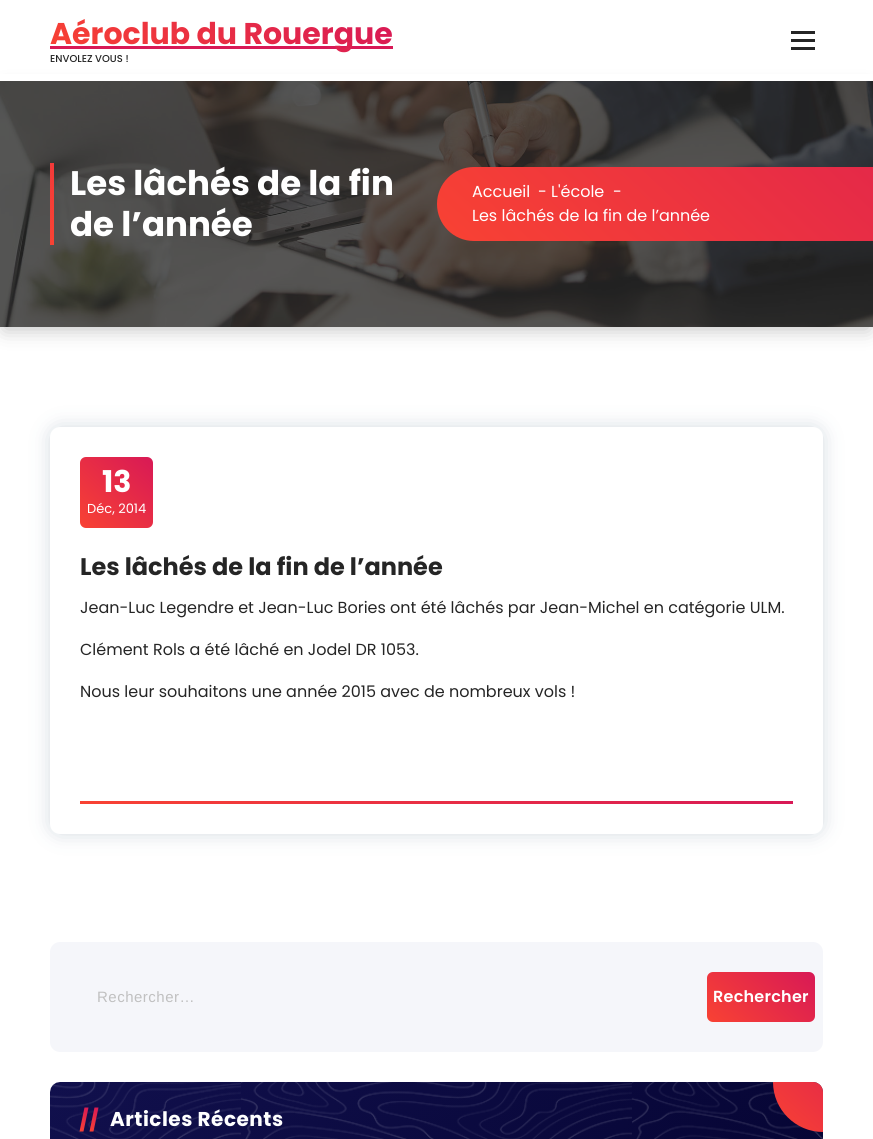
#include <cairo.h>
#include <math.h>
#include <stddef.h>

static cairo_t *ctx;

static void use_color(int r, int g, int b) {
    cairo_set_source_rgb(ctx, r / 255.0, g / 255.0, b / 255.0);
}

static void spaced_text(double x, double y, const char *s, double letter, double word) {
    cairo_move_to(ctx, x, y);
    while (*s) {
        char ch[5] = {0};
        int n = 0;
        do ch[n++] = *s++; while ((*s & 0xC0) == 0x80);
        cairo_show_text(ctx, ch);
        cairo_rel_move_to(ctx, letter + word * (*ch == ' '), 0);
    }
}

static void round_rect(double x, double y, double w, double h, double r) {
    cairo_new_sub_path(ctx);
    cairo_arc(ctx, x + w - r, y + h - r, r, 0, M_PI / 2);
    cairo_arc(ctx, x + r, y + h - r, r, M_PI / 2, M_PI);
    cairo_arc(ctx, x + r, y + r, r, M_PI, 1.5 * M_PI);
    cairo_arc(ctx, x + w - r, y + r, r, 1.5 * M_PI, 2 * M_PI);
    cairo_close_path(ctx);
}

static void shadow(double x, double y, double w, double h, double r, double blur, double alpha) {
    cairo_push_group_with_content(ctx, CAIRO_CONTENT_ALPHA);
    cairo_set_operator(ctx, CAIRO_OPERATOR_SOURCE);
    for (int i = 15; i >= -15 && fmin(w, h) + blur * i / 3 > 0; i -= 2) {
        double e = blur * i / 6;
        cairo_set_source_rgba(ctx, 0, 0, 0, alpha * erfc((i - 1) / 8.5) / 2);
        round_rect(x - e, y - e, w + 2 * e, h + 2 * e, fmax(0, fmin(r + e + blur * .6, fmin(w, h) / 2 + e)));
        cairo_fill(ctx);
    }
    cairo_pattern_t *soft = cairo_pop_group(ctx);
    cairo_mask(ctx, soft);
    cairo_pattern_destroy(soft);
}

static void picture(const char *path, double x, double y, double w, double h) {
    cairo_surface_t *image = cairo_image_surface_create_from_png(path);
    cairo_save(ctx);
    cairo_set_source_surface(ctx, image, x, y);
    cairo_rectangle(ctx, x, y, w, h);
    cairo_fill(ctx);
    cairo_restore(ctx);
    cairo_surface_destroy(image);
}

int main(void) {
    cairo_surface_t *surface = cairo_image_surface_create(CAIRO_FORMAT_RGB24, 873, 1139);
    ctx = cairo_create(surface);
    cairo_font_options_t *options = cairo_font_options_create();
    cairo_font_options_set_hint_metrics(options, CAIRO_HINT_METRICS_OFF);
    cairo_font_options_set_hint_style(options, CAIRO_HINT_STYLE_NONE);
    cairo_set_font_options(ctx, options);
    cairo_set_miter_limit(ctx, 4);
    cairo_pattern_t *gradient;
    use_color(255, 255, 255);
    cairo_paint(ctx);
    use_color(0, 0, 0);
    shadow(4, 91, 865, 238, 0, 10, 0.25);
    use_color(255, 255, 255);
    cairo_rectangle(ctx, 0, 74, 873, 7);
    cairo_fill(ctx);
    use_color(216, 25, 86);
    cairo_rectangle(ctx, 50, 46, 343, 3);
    cairo_fill(ctx);
    cairo_select_font_face(ctx, "Poppins", CAIRO_FONT_SLANT_NORMAL, CAIRO_FONT_WEIGHT_BOLD);
    cairo_set_font_size(ctx, 30);
    gradient = cairo_pattern_create_linear(310, -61, 133, 129);
    cairo_pattern_add_color_stop_rgba(gradient, 0, 0.847, 0.098, 0.337, 1);
    cairo_pattern_add_color_stop_rgba(gradient, 1, 0.973, 0.259, 0.2, 1);
    cairo_set_source(ctx, gradient);
    cairo_pattern_destroy(gradient);
    cairo_move_to(ctx, 50, 44);
    cairo_show_text(ctx, "Aéroclub du Rouergue");
    cairo_select_font_face(ctx, "Poppins Medium", CAIRO_FONT_SLANT_NORMAL, CAIRO_FONT_WEIGHT_NORMAL);
    cairo_set_font_size(ctx, 10);
    use_color(37, 37, 37);
    cairo_move_to(ctx, 50, 62);
    cairo_show_text(ctx, "ENVOLEZ VOUS !");
    cairo_rectangle(ctx, 791, 31, 24, 3);
    cairo_fill(ctx);
    cairo_rectangle(ctx, 791, 39, 24, 3);
    cairo_fill(ctx);
    cairo_rectangle(ctx, 791, 47, 24, 3);
    cairo_fill(ctx);
    picture("img1.png", 0, 81, 873, 246);
    picture("img2.png", 50, 163, 4, 82);
    cairo_select_font_face(ctx, "Poppins", CAIRO_FONT_SLANT_NORMAL, CAIRO_FONT_WEIGHT_BOLD);
    cairo_set_font_size(ctx, 34);
    use_color(255, 255, 255);
    cairo_move_to(ctx, 70, 195);
    cairo_show_text(ctx, "Les lâchés de la fin");
    cairo_move_to(ctx, 70, 236);
    cairo_show_text(ctx, "de l’année");
    gradient = cairo_pattern_create_linear(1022, -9, 625, 417);
    cairo_pattern_add_color_stop_rgba(gradient, 0, 0.847, 0.098, 0.337, 1);
    cairo_pattern_add_color_stop_rgba(gradient, 1, 0.973, 0.259, 0.2, 1);
    cairo_set_source(ctx, gradient);
    cairo_pattern_destroy(gradient);
    cairo_new_path(ctx);
    cairo_move_to(ctx, 474, 167);
    cairo_line_to(ctx, 873, 167);
    cairo_line_to(ctx, 873, 241);
    cairo_line_to(ctx, 474, 241);
    cairo_curve_to(ctx, 453.5, 241, 437, 224.5, 437, 204);
    cairo_curve_to(ctx, 437, 183.5, 453.5, 167, 474, 167);
    cairo_close_path(ctx);
    cairo_fill(ctx);
    cairo_select_font_face(ctx, "Poppins", CAIRO_FONT_SLANT_NORMAL, CAIRO_FONT_WEIGHT_NORMAL);
    cairo_set_font_size(ctx, 16);
    use_color(255, 255, 255);
    cairo_move_to(ctx, 472, 197);
    cairo_show_text(ctx, "Accueil");
    cairo_move_to(ctx, 538, 197);
    cairo_show_text(ctx, "- L'école");
    cairo_move_to(ctx, 613, 197);
    cairo_show_text(ctx, "-");
    cairo_move_to(ctx, 472, 221);
    cairo_show_text(ctx, "Les lâchés de la fin de l’année");
    use_color(33, 68, 98);
    shadow(50, 427, 773, 407, 10, 10, 0.19);
    use_color(255, 255, 255);
    round_rect(50, 427, 773, 407, 10);
    cairo_fill(ctx);
    gradient = cairo_pattern_create_linear(151, 455, 82, 530);
    cairo_pattern_add_color_stop_rgba(gradient, 0, 0.847, 0.098, 0.337, 1);
    cairo_pattern_add_color_stop_rgba(gradient, 1, 0.973, 0.259, 0.2, 1);
    cairo_set_source(ctx, gradient);
    cairo_pattern_destroy(gradient);
    round_rect(80, 457, 73, 71, 6);
    cairo_fill(ctx);
    cairo_select_font_face(ctx, "Poppins", CAIRO_FONT_SLANT_NORMAL, CAIRO_FONT_WEIGHT_BOLD);
    cairo_set_font_size(ctx, 30);
    use_color(255, 255, 255);
    cairo_move_to(ctx, 102, 492);
    cairo_show_text(ctx, "13");
    cairo_select_font_face(ctx, "Poppins", CAIRO_FONT_SLANT_NORMAL, CAIRO_FONT_WEIGHT_NORMAL);
    cairo_set_font_size(ctx, 13);
    cairo_move_to(ctx, 87, 513);
    cairo_show_text(ctx, "Déc, 2014");
    cairo_select_font_face(ctx, "Poppins", CAIRO_FONT_SLANT_NORMAL, CAIRO_FONT_WEIGHT_BOLD);
    cairo_set_font_size(ctx, 24);
    use_color(37, 37, 37);
    cairo_move_to(ctx, 80, 575);
    cairo_show_text(ctx, "Les lâchés de la fin de l’année");
    cairo_select_font_face(ctx, "Poppins", CAIRO_FONT_SLANT_NORMAL, CAIRO_FONT_WEIGHT_NORMAL);
    cairo_set_font_size(ctx, 16);
    cairo_move_to(ctx, 80, 613);
    cairo_show_text(ctx, "Jean-Luc Legendre et Jean-Luc Bories ont été lâchés par Jean-Michel en catégorie ULM.");
    cairo_move_to(ctx, 80, 655);
    cairo_show_text(ctx, "Clément Rols a été lâché en Jodel DR 1053.");
    cairo_move_to(ctx, 80, 697);
    cairo_show_text(ctx, "Nous leur souhaitons une année 2015 avec de nombreux vols !");
    gradient = cairo_pattern_create_linear(603, 624, 270, 981);
    cairo_pattern_add_color_stop_rgba(gradient, 0, 0.847, 0.098, 0.337, 1);
    cairo_pattern_add_color_stop_rgba(gradient, 1, 0.973, 0.259, 0.2, 1);
    cairo_set_source(ctx, gradient);
    cairo_pattern_destroy(gradient);
    cairo_rectangle(ctx, 80, 801, 713, 3);
    cairo_fill(ctx);
    use_color(245, 246, 250);
    round_rect(50, 942, 773, 110, 10);
    cairo_fill(ctx);
    cairo_select_font_face(ctx, "Liberation Sans", CAIRO_FONT_SLANT_NORMAL, CAIRO_FONT_WEIGHT_NORMAL);
    cairo_set_font_size(ctx, 15);
    use_color(192, 192, 192);
    spaced_text(97, 1002, "Rechercher…", 0.5, 0);
    gradient = cairo_pattern_create_linear(799, 957, 723, 1037);
    cairo_pattern_add_color_stop_rgba(gradient, 0, 0.847, 0.098, 0.337, 1);
    cairo_pattern_add_color_stop_rgba(gradient, 1, 0.973, 0.259, 0.2, 1);
    cairo_set_source(ctx, gradient);
    cairo_pattern_destroy(gradient);
    round_rect(707, 972, 108, 50, 6);
    cairo_fill(ctx);
    cairo_select_font_face(ctx, "Poppins SemiBold", CAIRO_FONT_SLANT_NORMAL, CAIRO_FONT_WEIGHT_NORMAL);
    cairo_set_font_size(ctx, 16);
    use_color(255, 255, 255);
    spaced_text(713, 1002, "Rechercher", 0.25, 0);
    use_color(245, 246, 250);
    round_rect(50, 1082, 773, 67, 10);
    cairo_fill(ctx);
    picture("img3.png", 50, 1082, 773, 57);
    gradient = cairo_pattern_create_linear(92, 1112, 76, 1127);
    cairo_pattern_add_color_stop_rgba(gradient, 0, 0.847, 0.098, 0.337, 1);
    cairo_pattern_add_color_stop_rgba(gradient, 1, 0.973, 0.259, 0.2, 1);
    cairo_set_source(ctx, gradient);
    cairo_pattern_destroy(gradient);
    cairo_new_path(ctx);
    cairo_move_to(ctx, 84.5, 1107.5);
    cairo_line_to(ctx, 88.5, 1107.5);
    cairo_line_to(ctx, 83.5, 1131.5);
    cairo_line_to(ctx, 79.5, 1131.5);
    cairo_close_path(ctx);
    cairo_fill(ctx);
    gradient = cairo_pattern_create_linear(102, 1112, 86, 1127);
    cairo_pattern_add_color_stop_rgba(gradient, 0, 0.847, 0.098, 0.337, 1);
    cairo_pattern_add_color_stop_rgba(gradient, 1, 0.973, 0.259, 0.2, 1);
    cairo_set_source(ctx, gradient);
    cairo_pattern_destroy(gradient);
    cairo_new_path(ctx);
    cairo_move_to(ctx, 94.5, 1107.5);
    cairo_line_to(ctx, 98.5, 1107.5);
    cairo_line_to(ctx, 93.5, 1131.5);
    cairo_line_to(ctx, 89.5, 1131.5);
    cairo_close_path(ctx);
    cairo_fill(ctx);
    cairo_select_font_face(ctx, "Poppins", CAIRO_FONT_SLANT_NORMAL, CAIRO_FONT_WEIGHT_BOLD);
    cairo_set_font_size(ctx, 20);
    use_color(255, 255, 255);
    spaced_text(110, 1126, "Articles Récents", 0.5, 0);
    gradient = cairo_pattern_create_linear(871, 1030, 775, 1134);
    cairo_pattern_add_color_stop_rgba(gradient, 0, 0.847, 0.098, 0.337, 1);
    cairo_pattern_add_color_stop_rgba(gradient, 1, 0.973, 0.259, 0.2, 1);
    cairo_set_source(ctx, gradient);
    cairo_pattern_destroy(gradient);
    cairo_new_path(ctx);
    cairo_move_to(ctx, 773, 1082);
    cairo_line_to(ctx, 813, 1082);
    cairo_curve_to(ctx, 818.5, 1082, 823, 1086.5, 823, 1092);
    cairo_line_to(ctx, 823, 1132);
    cairo_curve_to(ctx, 795.5, 1132, 773, 1109.5, 773, 1082);
    cairo_close_path(ctx);
    cairo_fill(ctx);
    cairo_surface_write_to_png(surface, "result.png");
    cairo_font_options_destroy(options);
    cairo_destroy(ctx);
    cairo_surface_destroy(surface);
    return 0;
}
